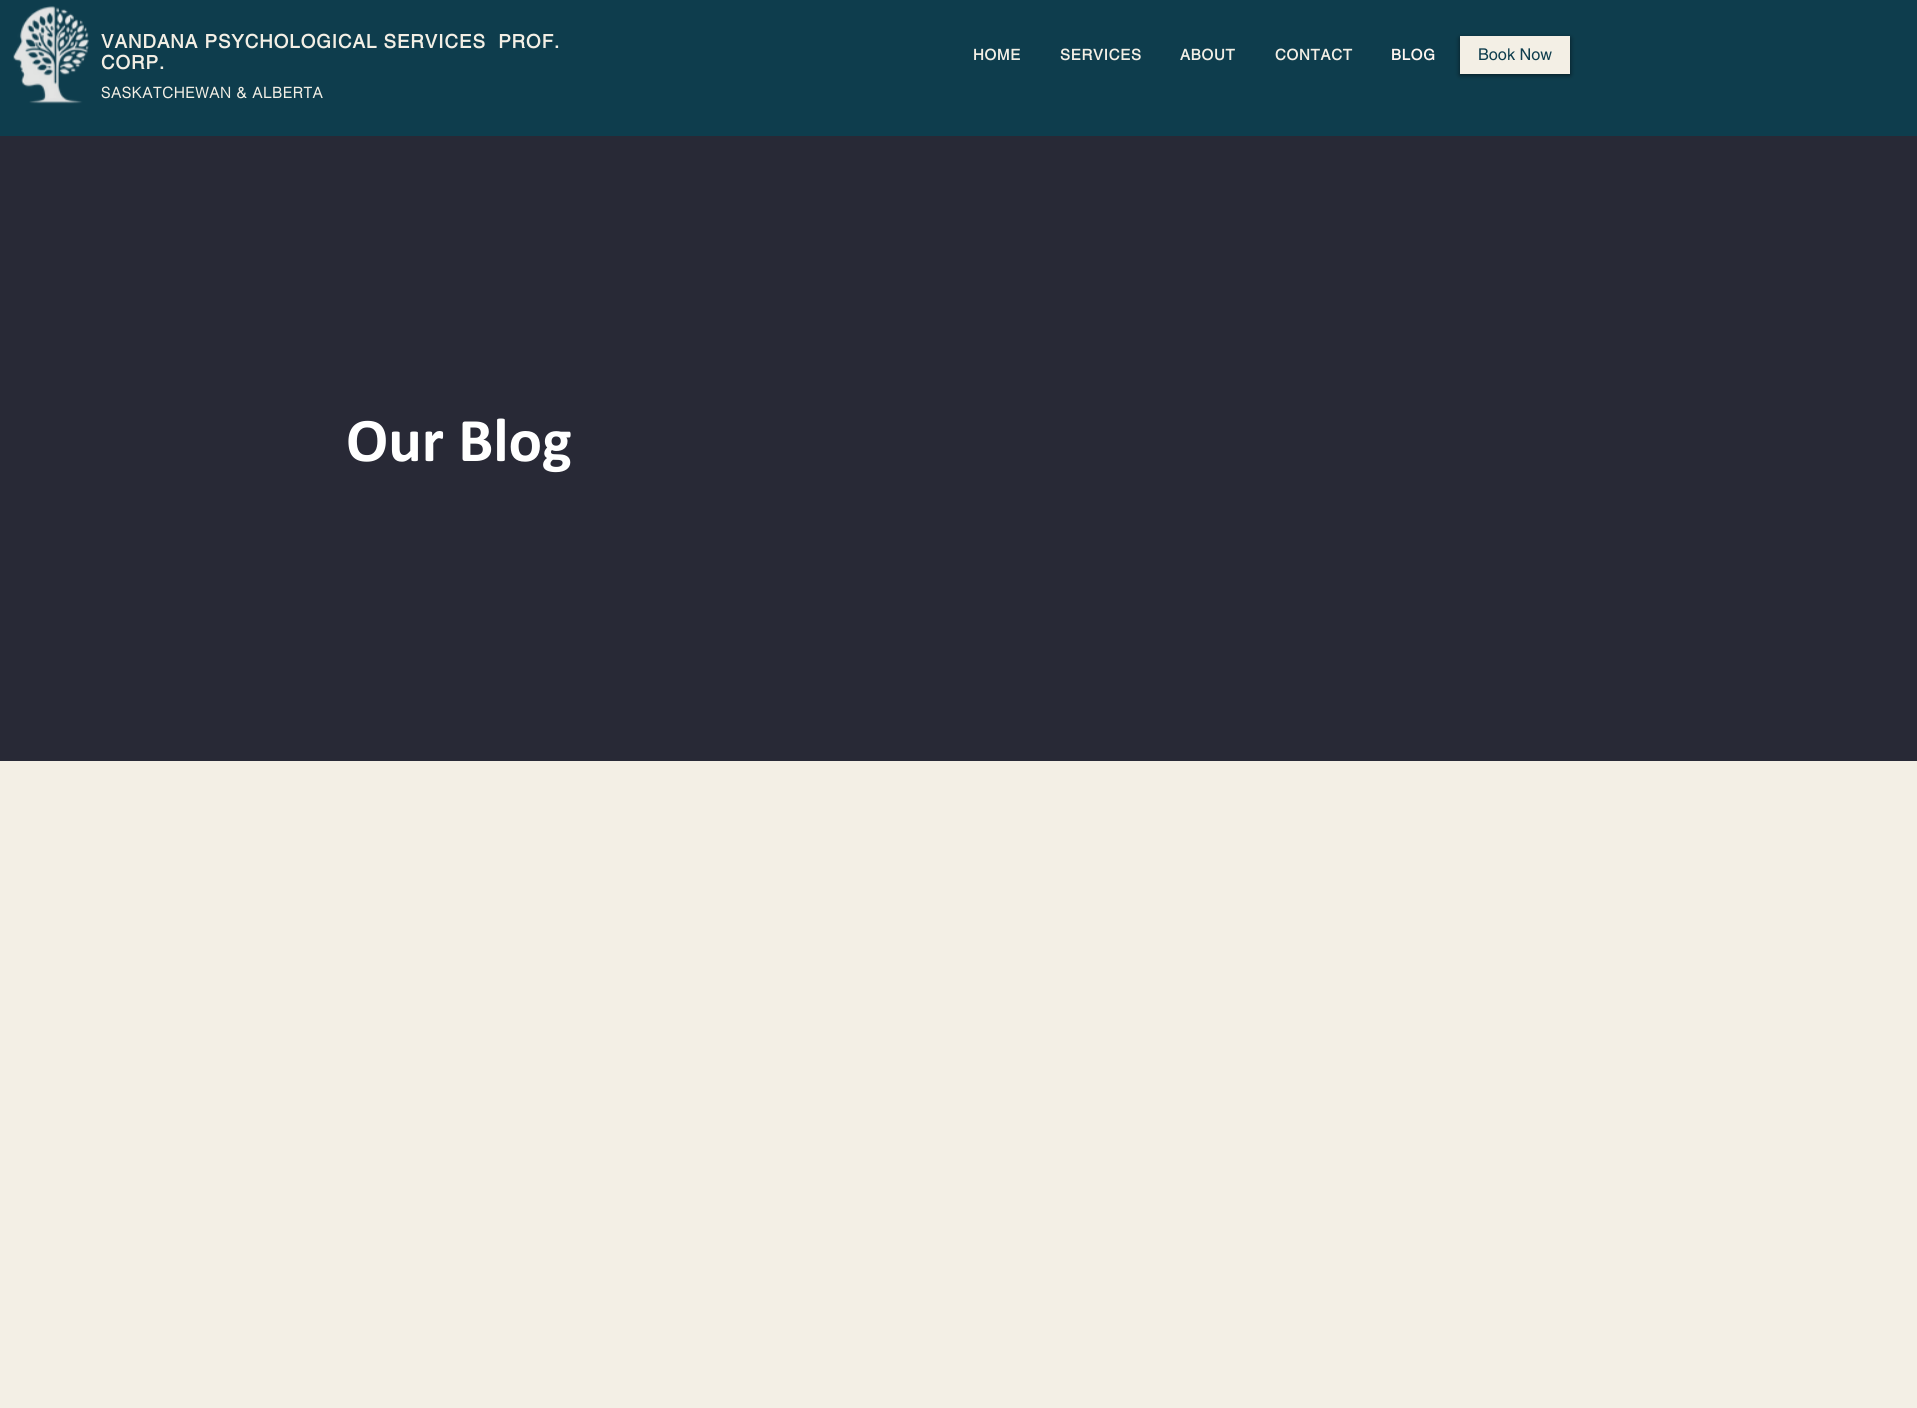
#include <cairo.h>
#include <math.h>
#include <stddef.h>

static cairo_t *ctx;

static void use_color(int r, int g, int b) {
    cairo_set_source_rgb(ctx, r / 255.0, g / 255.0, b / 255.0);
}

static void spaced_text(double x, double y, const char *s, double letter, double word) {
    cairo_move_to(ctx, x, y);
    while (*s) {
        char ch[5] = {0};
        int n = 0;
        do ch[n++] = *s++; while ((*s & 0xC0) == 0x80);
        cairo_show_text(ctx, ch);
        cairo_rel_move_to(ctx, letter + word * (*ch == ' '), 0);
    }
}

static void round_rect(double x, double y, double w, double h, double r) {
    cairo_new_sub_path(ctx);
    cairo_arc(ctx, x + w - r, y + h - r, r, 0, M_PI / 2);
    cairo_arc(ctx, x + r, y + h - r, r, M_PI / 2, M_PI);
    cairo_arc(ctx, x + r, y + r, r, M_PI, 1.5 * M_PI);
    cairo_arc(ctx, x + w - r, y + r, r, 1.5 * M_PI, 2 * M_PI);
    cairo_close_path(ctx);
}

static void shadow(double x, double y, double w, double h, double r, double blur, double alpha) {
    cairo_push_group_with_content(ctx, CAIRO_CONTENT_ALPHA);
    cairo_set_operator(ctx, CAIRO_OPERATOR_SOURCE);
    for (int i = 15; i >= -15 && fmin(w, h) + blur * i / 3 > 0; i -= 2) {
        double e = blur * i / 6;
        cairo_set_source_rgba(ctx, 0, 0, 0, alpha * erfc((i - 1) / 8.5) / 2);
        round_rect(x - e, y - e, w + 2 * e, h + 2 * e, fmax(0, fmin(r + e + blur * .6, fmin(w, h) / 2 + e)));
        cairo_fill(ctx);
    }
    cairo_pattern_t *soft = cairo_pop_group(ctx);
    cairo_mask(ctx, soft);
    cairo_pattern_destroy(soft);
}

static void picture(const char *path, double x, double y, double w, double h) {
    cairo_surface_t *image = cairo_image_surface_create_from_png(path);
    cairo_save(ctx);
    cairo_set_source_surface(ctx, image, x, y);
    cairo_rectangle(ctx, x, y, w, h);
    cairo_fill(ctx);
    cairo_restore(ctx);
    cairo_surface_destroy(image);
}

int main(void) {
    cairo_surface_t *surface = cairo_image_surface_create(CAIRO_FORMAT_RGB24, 1917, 1408);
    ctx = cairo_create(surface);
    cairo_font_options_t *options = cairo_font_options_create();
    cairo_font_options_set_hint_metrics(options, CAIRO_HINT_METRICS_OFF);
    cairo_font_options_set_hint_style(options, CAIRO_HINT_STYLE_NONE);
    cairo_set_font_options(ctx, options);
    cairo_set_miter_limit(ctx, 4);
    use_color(40, 41, 54);
    cairo_paint(ctx);
    use_color(14, 61, 77);
    cairo_rectangle(ctx, 0, 0, 1917, 136);
    cairo_fill(ctx);
    picture("img1.png", 13, 6, 76, 98);
    cairo_select_font_face(ctx, "helvetica", CAIRO_FONT_SLANT_NORMAL, CAIRO_FONT_WEIGHT_BOLD);
    cairo_set_font_size(ctx, 18.75);
    use_color(243, 239, 229);
    spaced_text(101, 48, "VANDANA PSYCHOLOGICAL SERVICES  PROF.", 0.95, 0);
    spaced_text(101, 69, "CORP.", 0.95, 0);
    cairo_select_font_face(ctx, "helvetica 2", CAIRO_FONT_SLANT_NORMAL, CAIRO_FONT_WEIGHT_BOLD);
    cairo_set_font_size(ctx, 15);
    spaced_text(101, 98, "SASKATCHEWAN & ALBERTA", 0.75, 0);
    cairo_select_font_face(ctx, "helvetica", CAIRO_FONT_SLANT_NORMAL, CAIRO_FONT_WEIGHT_BOLD);
    spaced_text(973, 60, "HOME", 0.75, 0);
    spaced_text(1060, 60, "SERVICES", 0.75, 0);
    spaced_text(1180, 60, "ABOUT", 0.75, 0);
    spaced_text(1275, 60, "CONTACT", 0.75, 0);
    use_color(255, 245, 240);
    spaced_text(1391, 60, "BLOG", 0.75, 0);
    use_color(0, 0, 0);
    shadow(1460, 38, 110, 37, 0, 2.5, 0.6);
    use_color(243, 239, 229);
    cairo_rectangle(ctx, 1460, 36, 110, 38);
    cairo_fill(ctx);
    cairo_select_font_face(ctx, "helvetica", CAIRO_FONT_SLANT_NORMAL, CAIRO_FONT_WEIGHT_NORMAL);
    cairo_set_font_size(ctx, 16.25);
    use_color(14, 61, 77);
    cairo_move_to(ctx, 1478, 60);
    cairo_show_text(ctx, "Book Now");
    cairo_select_font_face(ctx, "Calibri", CAIRO_FONT_SLANT_NORMAL, CAIRO_FONT_WEIGHT_BOLD);
    cairo_set_font_size(ctx, 62.5);
    use_color(255, 255, 255);
    cairo_move_to(ctx, 346, 461);
    cairo_show_text(ctx, "Our Blog");
    use_color(243, 239, 229);
    cairo_rectangle(ctx, 0, 761, 1917, 647);
    cairo_fill(ctx);
    cairo_surface_write_to_png(surface, "result.png");
    cairo_font_options_destroy(options);
    cairo_destroy(ctx);
    cairo_surface_destroy(surface);
    return 0;
}
